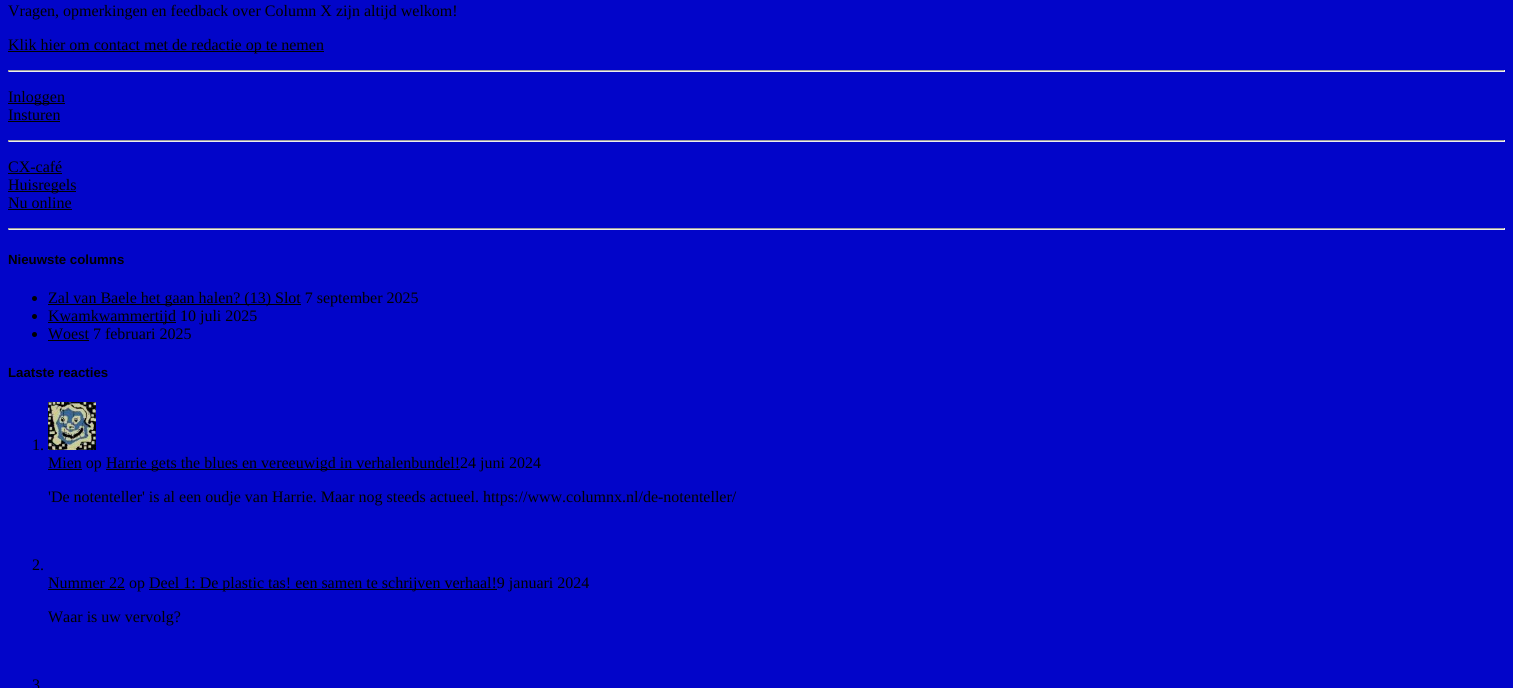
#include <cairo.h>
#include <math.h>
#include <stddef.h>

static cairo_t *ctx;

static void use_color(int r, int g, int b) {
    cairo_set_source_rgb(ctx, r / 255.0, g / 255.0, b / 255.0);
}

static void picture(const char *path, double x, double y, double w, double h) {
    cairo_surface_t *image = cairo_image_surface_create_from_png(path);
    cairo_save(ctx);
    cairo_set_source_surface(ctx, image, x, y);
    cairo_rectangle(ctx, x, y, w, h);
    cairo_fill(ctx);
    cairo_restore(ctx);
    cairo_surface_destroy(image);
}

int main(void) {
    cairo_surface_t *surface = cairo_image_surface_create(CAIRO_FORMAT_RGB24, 1513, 688);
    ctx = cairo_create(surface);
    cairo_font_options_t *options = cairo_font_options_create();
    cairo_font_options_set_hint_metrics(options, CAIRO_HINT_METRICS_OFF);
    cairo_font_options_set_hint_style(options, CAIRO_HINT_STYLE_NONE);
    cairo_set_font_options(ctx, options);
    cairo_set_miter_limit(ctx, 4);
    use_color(2, 5, 201);
    cairo_paint(ctx);
    cairo_select_font_face(ctx, "Liberation Serif", CAIRO_FONT_SLANT_NORMAL, CAIRO_FONT_WEIGHT_NORMAL);
    cairo_set_font_size(ctx, 16);
    use_color(0, 0, 0);
    cairo_move_to(ctx, 8, 16);
    cairo_show_text(ctx, "Vragen, opmerkingen en feedback over Column X zijn altijd welkom!");
    cairo_rectangle(ctx, 8, 51, 316, 1);
    cairo_fill(ctx);
    cairo_move_to(ctx, 8, 50);
    cairo_show_text(ctx, "Klik hier om contact met de redactie op te nemen");
    use_color(159, 159, 159);
    cairo_rectangle(ctx, 8, 70, 1497, 1);
    cairo_fill(ctx);
    use_color(238, 238, 238);
    cairo_rectangle(ctx, 1504, 70, 1, 2);
    cairo_fill(ctx);
    cairo_rectangle(ctx, 8, 71, 1497, 1);
    cairo_fill(ctx);
    use_color(159, 159, 159);
    cairo_rectangle(ctx, 8, 70, 1, 2);
    cairo_fill(ctx);
    use_color(0, 0, 0);
    cairo_rectangle(ctx, 8, 103, 57, 1);
    cairo_fill(ctx);
    cairo_move_to(ctx, 8, 102);
    cairo_show_text(ctx, "Inloggen");
    cairo_move_to(ctx, 8, 120);
    cairo_show_text(ctx, "Insturen");
    cairo_rectangle(ctx, 8, 121, 52, 1);
    cairo_fill(ctx);
    use_color(159, 159, 159);
    cairo_rectangle(ctx, 8, 140, 1497, 1);
    cairo_fill(ctx);
    use_color(238, 238, 238);
    cairo_rectangle(ctx, 1504, 140, 1, 2);
    cairo_fill(ctx);
    cairo_rectangle(ctx, 8, 141, 1497, 1);
    cairo_fill(ctx);
    use_color(159, 159, 159);
    cairo_rectangle(ctx, 8, 140, 1, 2);
    cairo_fill(ctx);
    use_color(0, 0, 0);
    cairo_move_to(ctx, 8, 172);
    cairo_show_text(ctx, "CX-café");
    cairo_rectangle(ctx, 8, 173, 54, 1);
    cairo_fill(ctx);
    cairo_rectangle(ctx, 8, 191, 68, 1);
    cairo_fill(ctx);
    cairo_move_to(ctx, 8, 190);
    cairo_show_text(ctx, "Huisregels");
    cairo_move_to(ctx, 8, 208);
    cairo_show_text(ctx, "Nu online");
    cairo_rectangle(ctx, 8, 209, 64, 1);
    cairo_fill(ctx);
    use_color(159, 159, 159);
    cairo_rectangle(ctx, 8, 228, 1497, 1);
    cairo_fill(ctx);
    use_color(238, 238, 238);
    cairo_rectangle(ctx, 1504, 228, 1, 2);
    cairo_fill(ctx);
    cairo_rectangle(ctx, 8, 229, 1497, 1);
    cairo_fill(ctx);
    use_color(159, 159, 159);
    cairo_rectangle(ctx, 8, 228, 1, 2);
    cairo_fill(ctx);
    cairo_select_font_face(ctx, "Liberation Sans", CAIRO_FONT_SLANT_NORMAL, CAIRO_FONT_WEIGHT_BOLD);
    cairo_set_font_size(ctx, 13.25);
    use_color(0, 0, 0);
    cairo_move_to(ctx, 8, 264);
    cairo_show_text(ctx, "Nieuwste columns");
    cairo_new_path(ctx);
    cairo_arc(ctx, 34.5, 298.5, 2.5, 0, 2 * M_PI);
    cairo_fill(ctx);
    cairo_rectangle(ctx, 48, 304, 253, 1);
    cairo_fill(ctx);
    cairo_select_font_face(ctx, "Liberation Serif", CAIRO_FONT_SLANT_NORMAL, CAIRO_FONT_WEIGHT_NORMAL);
    cairo_set_font_size(ctx, 16);
    cairo_move_to(ctx, 48, 303);
    cairo_show_text(ctx, "Zal van Baele het gaan halen? (13) Slot 7 september 2025");
    cairo_new_path(ctx);
    cairo_arc(ctx, 34.5, 316.5, 2.5, 0, 2 * M_PI);
    cairo_fill(ctx);
    cairo_rectangle(ctx, 48, 322, 128, 1);
    cairo_fill(ctx);
    cairo_move_to(ctx, 48, 321);
    cairo_show_text(ctx, "Kwamkwammertijd 10 juli 2025");
    cairo_new_path(ctx);
    cairo_arc(ctx, 34.5, 334.5, 2.5, 0, 2 * M_PI);
    cairo_fill(ctx);
    cairo_move_to(ctx, 48, 339);
    cairo_show_text(ctx, "Woest 7 februari 2025");
    cairo_rectangle(ctx, 48, 340, 41, 1);
    cairo_fill(ctx);
    cairo_select_font_face(ctx, "Liberation Sans", CAIRO_FONT_SLANT_NORMAL, CAIRO_FONT_WEIGHT_BOLD);
    cairo_set_font_size(ctx, 13.25);
    cairo_move_to(ctx, 8, 377);
    cairo_show_text(ctx, "Laatste reacties");
    cairo_select_font_face(ctx, "Liberation Serif", CAIRO_FONT_SLANT_NORMAL, CAIRO_FONT_WEIGHT_NORMAL);
    cairo_set_font_size(ctx, 16);
    cairo_move_to(ctx, 32, 450);
    cairo_show_text(ctx, "1.");
    picture("img1.png", 48, 402, 48, 48);
    cairo_rectangle(ctx, 48, 469, 34, 1);
    cairo_fill(ctx);
    cairo_move_to(ctx, 48, 468);
    cairo_show_text(ctx, "Mien op");
    cairo_rectangle(ctx, 106, 469, 354, 1);
    cairo_fill(ctx);
    cairo_move_to(ctx, 106, 468);
    cairo_show_text(ctx, "Harrie gets the blues en vereeuwigd in verhalenbundel!24 juni 2024");
    cairo_move_to(ctx, 48, 502);
    cairo_show_text(ctx, "'De notenteller' is al een oudje van Harrie. Maar nog steeds actueel. https://www.columnx.nl/de-notenteller/");
    cairo_move_to(ctx, 32, 570);
    cairo_show_text(ctx, "2.");
    cairo_rectangle(ctx, 48, 589, 77, 1);
    cairo_fill(ctx);
    cairo_move_to(ctx, 48, 588);
    cairo_show_text(ctx, "Nummer 22 op");
    cairo_rectangle(ctx, 149, 589, 348, 1);
    cairo_fill(ctx);
    cairo_move_to(ctx, 149, 588);
    cairo_show_text(ctx, "Deel 1: De plastic tas! een samen te schrijven verhaal!9 januari 2024");
    cairo_move_to(ctx, 48, 622);
    cairo_show_text(ctx, "Waar is uw vervolg?");
    cairo_move_to(ctx, 32, 690);
    cairo_show_text(ctx, "3");
    cairo_surface_write_to_png(surface, "result.png");
    cairo_font_options_destroy(options);
    cairo_destroy(ctx);
    cairo_surface_destroy(surface);
    return 0;
}
